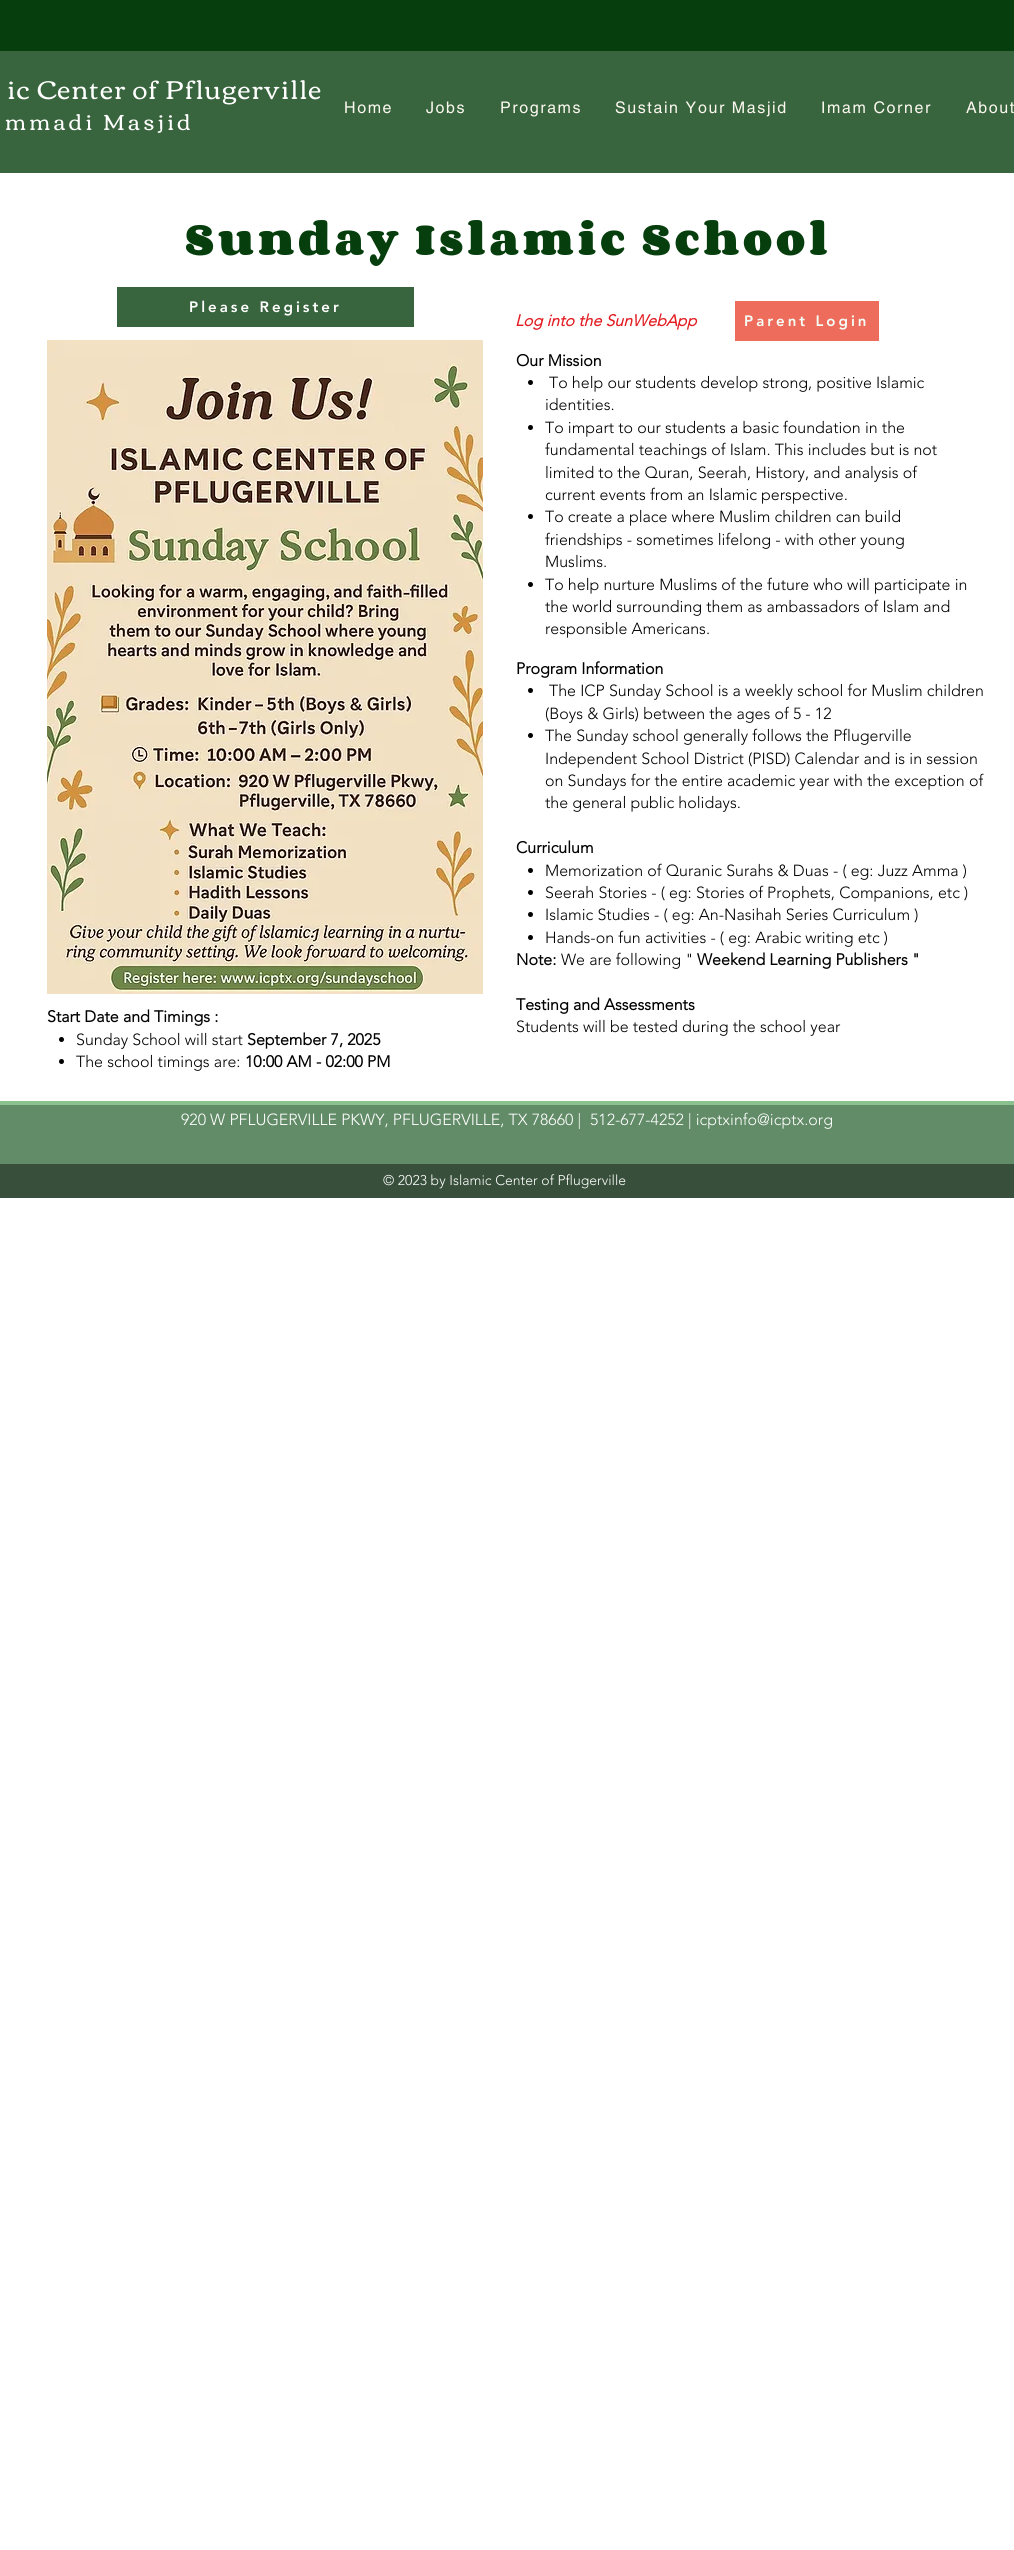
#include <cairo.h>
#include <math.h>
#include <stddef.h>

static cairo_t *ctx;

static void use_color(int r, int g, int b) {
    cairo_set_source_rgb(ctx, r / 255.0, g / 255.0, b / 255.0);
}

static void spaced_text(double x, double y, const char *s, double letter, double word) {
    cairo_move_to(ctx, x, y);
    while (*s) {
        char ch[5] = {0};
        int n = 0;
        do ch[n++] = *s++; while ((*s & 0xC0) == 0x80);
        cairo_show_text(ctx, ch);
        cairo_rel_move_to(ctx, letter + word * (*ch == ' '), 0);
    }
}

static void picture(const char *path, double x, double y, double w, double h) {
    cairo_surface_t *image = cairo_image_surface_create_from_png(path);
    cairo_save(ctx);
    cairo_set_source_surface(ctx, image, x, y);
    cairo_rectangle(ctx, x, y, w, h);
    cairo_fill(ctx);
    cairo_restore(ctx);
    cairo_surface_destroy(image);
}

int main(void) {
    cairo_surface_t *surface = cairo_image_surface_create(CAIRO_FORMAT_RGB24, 1014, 2550);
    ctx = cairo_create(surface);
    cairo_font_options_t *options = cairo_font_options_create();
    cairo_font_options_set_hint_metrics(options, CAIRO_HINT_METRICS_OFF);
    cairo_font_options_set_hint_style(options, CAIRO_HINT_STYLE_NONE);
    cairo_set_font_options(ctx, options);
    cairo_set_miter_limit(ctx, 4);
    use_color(255, 255, 255);
    cairo_paint(ctx);
    use_color(6, 63, 13);
    cairo_rectangle(ctx, 0, 0, 1014, 51);
    cairo_fill(ctx);
    use_color(56, 101, 61);
    cairo_rectangle(ctx, 0, 51, 1014, 122);
    cairo_fill(ctx);
    cairo_select_font_face(ctx, "Corben", CAIRO_FONT_SLANT_NORMAL, CAIRO_FONT_WEIGHT_NORMAL);
    cairo_set_font_size(ctx, 26);
    use_color(255, 255, 255);
    spaced_text(7, 99, "ic Center of Pflugerville", 1.3, 0);
    cairo_select_font_face(ctx, "helvetica", CAIRO_FONT_SLANT_NORMAL, CAIRO_FONT_WEIGHT_NORMAL);
    cairo_set_font_size(ctx, 16);
    use_color(252, 248, 240);
    spaced_text(344, 113, "Home", 1.6, 0);
    spaced_text(426, 113, "Jobs", 1.6, 0);
    spaced_text(500, 113, "Programs", 1.6, 0);
    spaced_text(615, 113, "Sustain Your Masjid", 1.6, 0);
    spaced_text(821, 113, "Imam Corner", 1.6, 0);
    spaced_text(966, 113, "About", 1.6, 0);
    cairo_select_font_face(ctx, "Corben", CAIRO_FONT_SLANT_NORMAL, CAIRO_FONT_WEIGHT_NORMAL);
    cairo_set_font_size(ctx, 22);
    use_color(255, 255, 255);
    spaced_text(5, 130, "mmadi Masjid", 3.25, 0);
    cairo_select_font_face(ctx, "Corben", CAIRO_FONT_SLANT_NORMAL, CAIRO_FONT_WEIGHT_BOLD);
    cairo_set_font_size(ctx, 38);
    use_color(6, 63, 13);
    spaced_text(185, 255, "Sunday Islamic School", 3.8, 0);
    use_color(56, 101, 61);
    cairo_rectangle(ctx, 117, 287, 297, 40);
    cairo_fill(ctx);
    cairo_select_font_face(ctx, "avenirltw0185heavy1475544 Black", CAIRO_FONT_SLANT_NORMAL, CAIRO_FONT_WEIGHT_NORMAL);
    cairo_set_font_size(ctx, 15);
    use_color(255, 255, 255);
    spaced_text(189, 312, "Please Register", 3, 0);
    cairo_select_font_face(ctx, "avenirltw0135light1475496", CAIRO_FONT_SLANT_ITALIC, CAIRO_FONT_WEIGHT_BOLD);
    cairo_set_font_size(ctx, 16);
    use_color(226, 28, 33);
    cairo_move_to(ctx, 515, 326);
    cairo_show_text(ctx, "Log into the SunWebApp");
    use_color(237, 108, 92);
    cairo_rectangle(ctx, 735, 301, 144, 40);
    cairo_fill(ctx);
    cairo_select_font_face(ctx, "avenirltw0185heavy1475544 Black", CAIRO_FONT_SLANT_NORMAL, CAIRO_FONT_WEIGHT_NORMAL);
    cairo_set_font_size(ctx, 15);
    use_color(245, 255, 247);
    spaced_text(744, 326, "Parent Login", 3, 0);
    picture("img1.png", 47, 340, 436, 654);
    cairo_select_font_face(ctx, "avenirltw0135light1475496", CAIRO_FONT_SLANT_NORMAL, CAIRO_FONT_WEIGHT_BOLD);
    cairo_set_font_size(ctx, 16);
    use_color(0, 0, 0);
    cairo_move_to(ctx, 516, 366);
    cairo_show_text(ctx, "Our Mission");
    cairo_new_path(ctx);
    cairo_arc(ctx, 530.5, 382.5, 2.5, 0, 2 * M_PI);
    cairo_fill(ctx);
    cairo_select_font_face(ctx, "avenirltw0135light1475496 Light", CAIRO_FONT_SLANT_NORMAL, CAIRO_FONT_WEIGHT_NORMAL);
    cairo_move_to(ctx, 549, 388);
    cairo_show_text(ctx, "To help our students develop strong, positive Islamic");
    cairo_move_to(ctx, 545, 410);
    cairo_show_text(ctx, "identities.");
    cairo_new_path(ctx);
    cairo_arc(ctx, 530.5, 427.5, 2.5, 0, 2 * M_PI);
    cairo_fill(ctx);
    cairo_move_to(ctx, 545, 433);
    cairo_show_text(ctx, "To impart to our students a basic foundation in the");
    cairo_move_to(ctx, 545, 455);
    cairo_show_text(ctx, "fundamental teachings of Islam. This includes but is not");
    cairo_move_to(ctx, 545, 478);
    cairo_show_text(ctx, "limited to the Quran, Seerah, History, and analysis of");
    cairo_move_to(ctx, 545, 500);
    cairo_show_text(ctx, "current events from an Islamic perspective.");
    cairo_new_path(ctx);
    cairo_arc(ctx, 530.5, 516.5, 2.5, 0, 2 * M_PI);
    cairo_fill(ctx);
    cairo_move_to(ctx, 545, 522);
    cairo_show_text(ctx, "To create a place where Muslim children can build");
    cairo_move_to(ctx, 545, 545);
    cairo_show_text(ctx, "friendships - sometimes lifelong - with other young");
    cairo_move_to(ctx, 545, 567);
    cairo_show_text(ctx, "Muslims.");
    cairo_new_path(ctx);
    cairo_arc(ctx, 530.5, 584.5, 2.5, 0, 2 * M_PI);
    cairo_fill(ctx);
    cairo_move_to(ctx, 545, 590);
    cairo_show_text(ctx, "To help nurture Muslims of the future who will participate in");
    cairo_move_to(ctx, 545, 612);
    cairo_show_text(ctx, "the world surrounding them as ambassadors of Islam and");
    cairo_move_to(ctx, 545, 634);
    cairo_show_text(ctx, "responsible Americans.");
    cairo_select_font_face(ctx, "avenirltw0135light1475496", CAIRO_FONT_SLANT_NORMAL, CAIRO_FONT_WEIGHT_BOLD);
    cairo_move_to(ctx, 47, 1022);
    cairo_show_text(ctx, "Start Date and Timings :");
    cairo_new_path(ctx);
    cairo_arc(ctx, 61.5, 1039.5, 2.5, 0, 2 * M_PI);
    cairo_fill(ctx);
    cairo_select_font_face(ctx, "avenirltw0135light1475496 Light", CAIRO_FONT_SLANT_NORMAL, CAIRO_FONT_WEIGHT_NORMAL);
    cairo_move_to(ctx, 76, 1045);
    cairo_show_text(ctx, "Sunday School will start");
    cairo_select_font_face(ctx, "avenirltw0135light1475496", CAIRO_FONT_SLANT_NORMAL, CAIRO_FONT_WEIGHT_BOLD);
    cairo_move_to(ctx, 247, 1045);
    cairo_show_text(ctx, "September 7, 2025");
    cairo_new_path(ctx);
    cairo_arc(ctx, 61.5, 1061.5, 2.5, 0, 2 * M_PI);
    cairo_fill(ctx);
    cairo_select_font_face(ctx, "avenirltw0135light1475496 Light", CAIRO_FONT_SLANT_NORMAL, CAIRO_FONT_WEIGHT_NORMAL);
    cairo_move_to(ctx, 76, 1067);
    cairo_show_text(ctx, "The school timings are:");
    cairo_select_font_face(ctx, "avenirltw0135light1475496", CAIRO_FONT_SLANT_NORMAL, CAIRO_FONT_WEIGHT_BOLD);
    cairo_move_to(ctx, 245, 1067);
    cairo_show_text(ctx, "10:00 AM - 02:00 PM");
    cairo_move_to(ctx, 516, 674);
    cairo_show_text(ctx, "Program Information");
    cairo_new_path(ctx);
    cairo_arc(ctx, 530.5, 690.5, 2.5, 0, 2 * M_PI);
    cairo_fill(ctx);
    cairo_select_font_face(ctx, "avenirltw0135light1475496 Light", CAIRO_FONT_SLANT_NORMAL, CAIRO_FONT_WEIGHT_NORMAL);
    cairo_move_to(ctx, 549, 696);
    cairo_show_text(ctx, "The ICP Sunday School is a weekly school for Muslim children");
    cairo_move_to(ctx, 545, 719);
    cairo_show_text(ctx, "(Boys & Girls) between the ages of 5 - 12");
    cairo_new_path(ctx);
    cairo_arc(ctx, 530.5, 735.5, 2.5, 0, 2 * M_PI);
    cairo_fill(ctx);
    cairo_move_to(ctx, 545, 741);
    cairo_show_text(ctx, "The Sunday school generally follows the Pflugerville");
    cairo_move_to(ctx, 545, 764);
    cairo_show_text(ctx, "Independent School District (PISD) Calendar and is in session");
    cairo_move_to(ctx, 545, 786);
    cairo_show_text(ctx, "on Sundays for the entire academic year with the exception of");
    cairo_move_to(ctx, 545, 808);
    cairo_show_text(ctx, "the general public holidays.");
    cairo_select_font_face(ctx, "avenirltw0135light1475496", CAIRO_FONT_SLANT_NORMAL, CAIRO_FONT_WEIGHT_BOLD);
    cairo_move_to(ctx, 516, 853);
    cairo_show_text(ctx, "Curriculum");
    cairo_new_path(ctx);
    cairo_arc(ctx, 530.5, 870.5, 2.5, 0, 2 * M_PI);
    cairo_fill(ctx);
    cairo_select_font_face(ctx, "avenirltw0135light1475496 Light", CAIRO_FONT_SLANT_NORMAL, CAIRO_FONT_WEIGHT_NORMAL);
    cairo_move_to(ctx, 545, 876);
    cairo_show_text(ctx, "Memorization of Quranic Surahs & Duas - ( eg: Juzz Amma )");
    cairo_new_path(ctx);
    cairo_arc(ctx, 530.5, 892.5, 2.5, 0, 2 * M_PI);
    cairo_fill(ctx);
    cairo_move_to(ctx, 545, 898);
    cairo_show_text(ctx, "Seerah Stories - ( eg: Stories of Prophets, Companions, etc )");
    cairo_new_path(ctx);
    cairo_arc(ctx, 530.5, 914.5, 2.5, 0, 2 * M_PI);
    cairo_fill(ctx);
    cairo_move_to(ctx, 545, 920);
    cairo_show_text(ctx, "Islamic Studies - ( eg: An-Nasihah Series Curriculum )");
    cairo_new_path(ctx);
    cairo_arc(ctx, 530.5, 937.5, 2.5, 0, 2 * M_PI);
    cairo_fill(ctx);
    cairo_move_to(ctx, 545, 943);
    cairo_show_text(ctx, "Hands-on fun activities - ( eg: Arabic writing etc )");
    cairo_select_font_face(ctx, "avenirltw0135light1475496", CAIRO_FONT_SLANT_NORMAL, CAIRO_FONT_WEIGHT_BOLD);
    cairo_move_to(ctx, 516, 965);
    cairo_show_text(ctx, "Note:");
    cairo_select_font_face(ctx, "avenirltw0135light1475496 Light", CAIRO_FONT_SLANT_NORMAL, CAIRO_FONT_WEIGHT_NORMAL);
    cairo_move_to(ctx, 561, 965);
    cairo_show_text(ctx, "We are following \"");
    cairo_select_font_face(ctx, "avenirltw0135light1475496", CAIRO_FONT_SLANT_NORMAL, CAIRO_FONT_WEIGHT_BOLD);
    cairo_move_to(ctx, 697, 965);
    cairo_show_text(ctx, "Weekend Learning Publishers \"");
    cairo_move_to(ctx, 516, 1010);
    cairo_show_text(ctx, "Testing and Assessments");
    cairo_select_font_face(ctx, "avenirltw0135light1475496 Light", CAIRO_FONT_SLANT_NORMAL, CAIRO_FONT_WEIGHT_NORMAL);
    cairo_move_to(ctx, 516, 1032);
    cairo_show_text(ctx, "Students will be tested during the school year");
    use_color(98, 140, 103);
    cairo_rectangle(ctx, 0, 1105, 1014, 59);
    cairo_fill(ctx);
    use_color(138, 194, 143);
    cairo_rectangle(ctx, 0, 1101, 1014, 4);
    cairo_fill(ctx);
    use_color(255, 255, 255);
    cairo_move_to(ctx, 181, 1125);
    cairo_show_text(ctx, "920 W PFLUGERVILLE PKWY, PFLUGERVILLE, TX 78660 |");
    cairo_move_to(ctx, 590, 1125);
    cairo_show_text(ctx, "512-677-4252 | icptxinfo@icptx.org");
    use_color(56, 80, 59);
    cairo_rectangle(ctx, 0, 1164, 1014, 34);
    cairo_fill(ctx);
    cairo_set_font_size(ctx, 14);
    use_color(255, 255, 255);
    cairo_move_to(ctx, 383, 1185);
    cairo_show_text(ctx, "© 2023 by Islamic Center of Pflugerville");
    cairo_surface_write_to_png(surface, "result.png");
    cairo_font_options_destroy(options);
    cairo_destroy(ctx);
    cairo_surface_destroy(surface);
    return 0;
}
